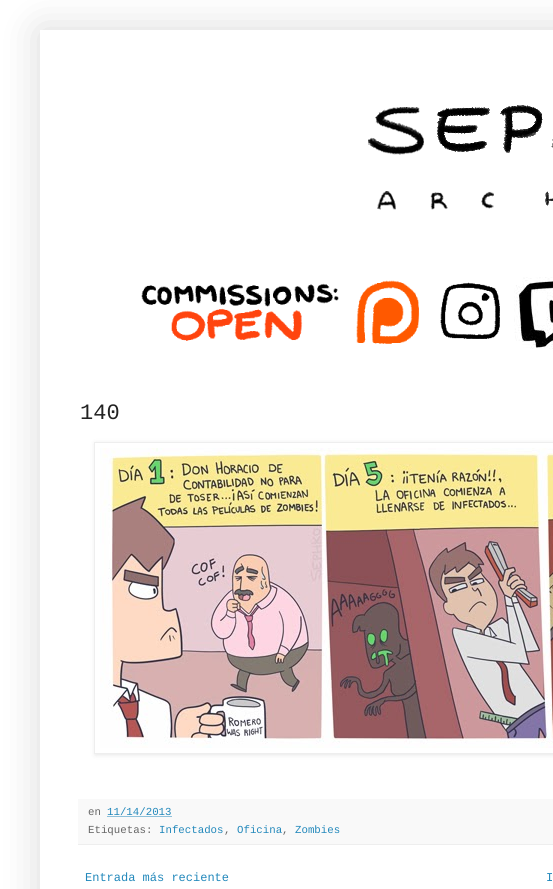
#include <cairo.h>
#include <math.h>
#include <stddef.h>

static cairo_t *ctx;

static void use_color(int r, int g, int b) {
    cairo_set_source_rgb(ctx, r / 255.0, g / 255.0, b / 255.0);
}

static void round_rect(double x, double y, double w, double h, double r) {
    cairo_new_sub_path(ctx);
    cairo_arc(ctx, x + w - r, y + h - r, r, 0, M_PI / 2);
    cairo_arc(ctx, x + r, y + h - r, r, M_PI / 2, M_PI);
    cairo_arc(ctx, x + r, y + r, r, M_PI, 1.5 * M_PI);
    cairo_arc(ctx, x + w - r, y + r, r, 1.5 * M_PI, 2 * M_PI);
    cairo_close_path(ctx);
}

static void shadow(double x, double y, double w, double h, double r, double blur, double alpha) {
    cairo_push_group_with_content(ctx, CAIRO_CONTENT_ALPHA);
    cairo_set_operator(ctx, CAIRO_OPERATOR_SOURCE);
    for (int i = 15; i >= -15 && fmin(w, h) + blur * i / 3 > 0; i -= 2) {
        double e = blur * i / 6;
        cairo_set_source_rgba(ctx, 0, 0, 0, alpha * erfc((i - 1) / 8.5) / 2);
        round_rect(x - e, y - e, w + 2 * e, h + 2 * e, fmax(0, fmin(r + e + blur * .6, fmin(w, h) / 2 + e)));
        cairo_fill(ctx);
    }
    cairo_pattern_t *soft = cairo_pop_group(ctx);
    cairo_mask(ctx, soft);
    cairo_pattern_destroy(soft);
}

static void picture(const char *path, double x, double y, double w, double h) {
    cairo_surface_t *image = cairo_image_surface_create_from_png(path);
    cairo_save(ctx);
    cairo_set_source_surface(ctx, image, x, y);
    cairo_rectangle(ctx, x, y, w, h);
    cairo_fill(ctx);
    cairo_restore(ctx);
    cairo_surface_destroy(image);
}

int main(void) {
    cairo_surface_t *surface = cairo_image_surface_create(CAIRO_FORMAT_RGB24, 553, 889);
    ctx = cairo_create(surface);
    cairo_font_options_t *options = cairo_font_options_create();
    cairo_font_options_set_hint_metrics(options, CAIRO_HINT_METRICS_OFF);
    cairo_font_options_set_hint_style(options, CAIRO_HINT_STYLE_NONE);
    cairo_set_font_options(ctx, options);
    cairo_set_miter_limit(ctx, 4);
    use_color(255, 255, 255);
    cairo_paint(ctx);
    cairo_save(ctx);
    cairo_set_fill_rule(ctx, CAIRO_FILL_RULE_EVEN_ODD);
    cairo_new_path(ctx);
    cairo_move_to(ctx, 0, 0);
    cairo_line_to(ctx, 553, 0);
    cairo_line_to(ctx, 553, 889);
    cairo_line_to(ctx, 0, 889);
    cairo_close_path(ctx);
    cairo_move_to(ctx, 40, 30);
    cairo_line_to(ctx, 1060, 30);
    cairo_line_to(ctx, 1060, 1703);
    cairo_line_to(ctx, 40, 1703);
    cairo_close_path(ctx);
    cairo_clip(ctx);
    use_color(0, 0, 0);
    shadow(40, 30, 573, 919, 0, 20, 0.15);
    cairo_restore(ctx);
    picture("img1.png", 368, 105, 185, 105);
    picture("img2.png", 141, 283, 198, 58);
    picture("img3.png", 356, 280, 64, 64);
    picture("img4.png", 440, 282, 60, 57);
    picture("img5.png", 514, 277, 39, 72);
    cairo_select_font_face(ctx, "Liberation Mono", CAIRO_FONT_SLANT_NORMAL, CAIRO_FONT_WEIGHT_NORMAL);
    cairo_set_font_size(ctx, 22);
    use_color(34, 34, 34);
    cairo_move_to(ctx, 80, 419);
    cairo_show_text(ctx, "140");
    cairo_save(ctx);
    cairo_set_fill_rule(ctx, CAIRO_FILL_RULE_EVEN_ODD);
    cairo_new_path(ctx);
    cairo_move_to(ctx, 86, 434);
    cairo_line_to(ctx, 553, 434);
    cairo_line_to(ctx, 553, 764);
    cairo_line_to(ctx, 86, 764);
    cairo_close_path(ctx);
    cairo_move_to(ctx, 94, 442);
    cairo_line_to(ctx, 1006, 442);
    cairo_line_to(ctx, 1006, 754);
    cairo_line_to(ctx, 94, 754);
    cairo_close_path(ctx);
    cairo_clip(ctx);
    use_color(0, 0, 0);
    shadow(95, 443, 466, 312, 0, 2.5, 0.1);
    cairo_restore(ctx);
    cairo_rectangle(ctx, 94.5, 442.5, 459, 311);
    use_color(238, 238, 238);
    cairo_set_line_width(ctx, 1);
    cairo_stroke(ctx);
    picture("img6.png", 100, 448, 453, 300);
    use_color(249, 249, 249);
    cairo_rectangle(ctx, 78, 799, 475, 45);
    cairo_fill(ctx);
    use_color(238, 238, 238);
    cairo_rectangle(ctx, 78, 844, 475, 1);
    cairo_fill(ctx);
    cairo_set_font_size(ctx, 10.75);
    use_color(102, 102, 102);
    cairo_move_to(ctx, 88, 815);
    cairo_show_text(ctx, "en");
    use_color(34, 136, 187);
    cairo_move_to(ctx, 107, 815);
    cairo_show_text(ctx, "11/14/2013");
    cairo_new_path(ctx);
    cairo_move_to(ctx, 107.5, 816.5);
    cairo_line_to(ctx, 172, 816.5);
    cairo_set_dash(ctx, (double[]){1, 1}, 2, 0);
    cairo_stroke(ctx);
    use_color(102, 102, 102);
    cairo_move_to(ctx, 88, 833);
    cairo_show_text(ctx, "Etiquetas:");
    use_color(34, 136, 187);
    cairo_move_to(ctx, 159, 833);
    cairo_show_text(ctx, "Infectados");
    use_color(102, 102, 102);
    cairo_move_to(ctx, 224, 833);
    cairo_show_text(ctx, ",");
    use_color(34, 136, 187);
    cairo_move_to(ctx, 237, 833);
    cairo_show_text(ctx, "Oficina");
    use_color(102, 102, 102);
    cairo_move_to(ctx, 282, 833);
    cairo_show_text(ctx, ",");
    use_color(34, 136, 187);
    cairo_move_to(ctx, 295, 833);
    cairo_show_text(ctx, "Zombies");
    cairo_set_font_size(ctx, 12);
    cairo_move_to(ctx, 85, 881);
    cairo_show_text(ctx, "Entrada más reciente");
    cairo_move_to(ctx, 546, 881);
    cairo_show_text(ctx, "I");
    cairo_surface_write_to_png(surface, "result.png");
    cairo_font_options_destroy(options);
    cairo_destroy(ctx);
    cairo_surface_destroy(surface);
    return 0;
}
